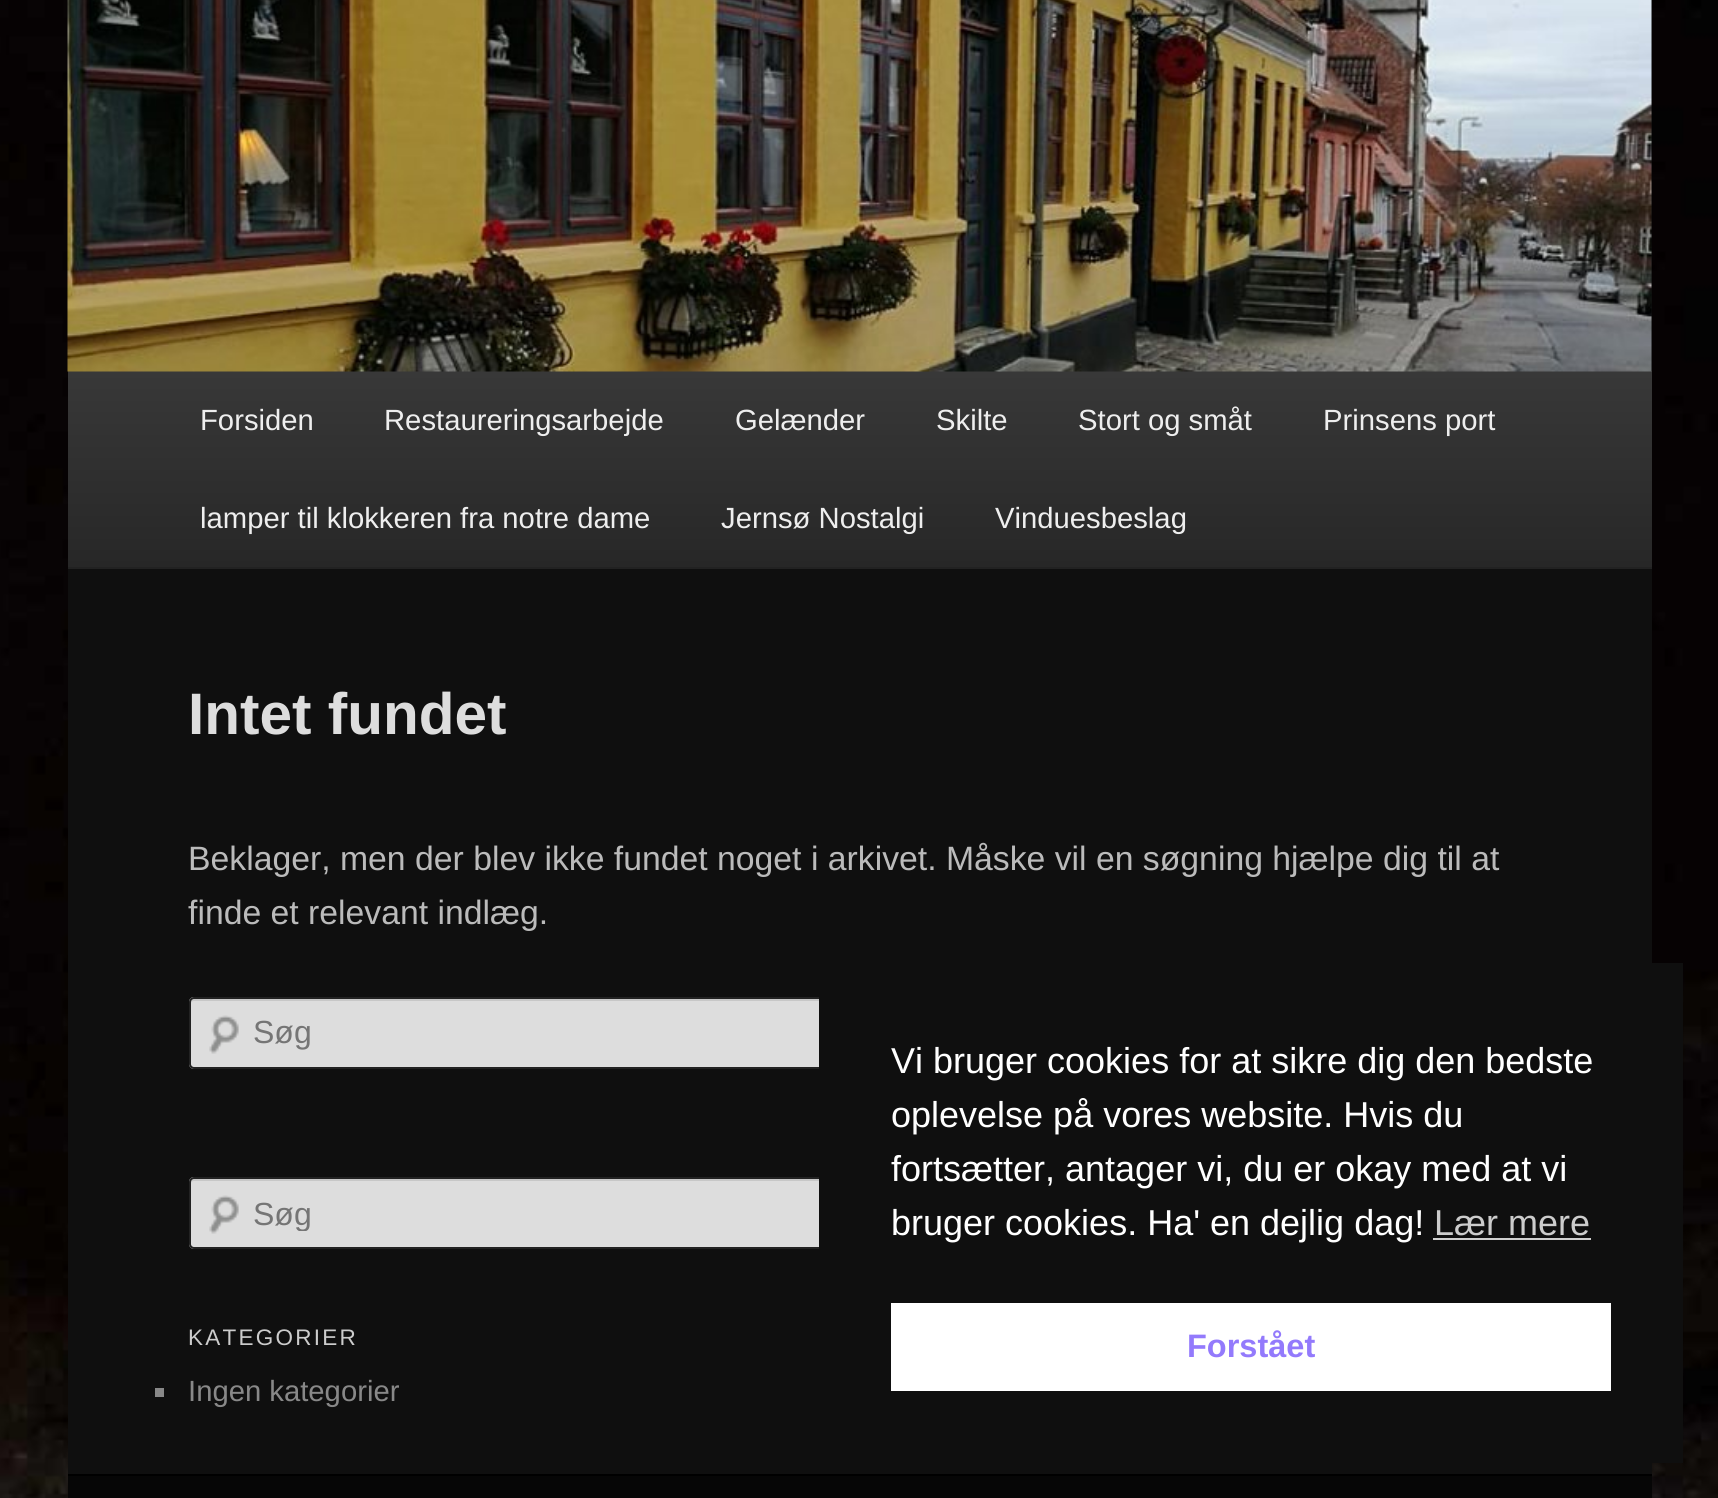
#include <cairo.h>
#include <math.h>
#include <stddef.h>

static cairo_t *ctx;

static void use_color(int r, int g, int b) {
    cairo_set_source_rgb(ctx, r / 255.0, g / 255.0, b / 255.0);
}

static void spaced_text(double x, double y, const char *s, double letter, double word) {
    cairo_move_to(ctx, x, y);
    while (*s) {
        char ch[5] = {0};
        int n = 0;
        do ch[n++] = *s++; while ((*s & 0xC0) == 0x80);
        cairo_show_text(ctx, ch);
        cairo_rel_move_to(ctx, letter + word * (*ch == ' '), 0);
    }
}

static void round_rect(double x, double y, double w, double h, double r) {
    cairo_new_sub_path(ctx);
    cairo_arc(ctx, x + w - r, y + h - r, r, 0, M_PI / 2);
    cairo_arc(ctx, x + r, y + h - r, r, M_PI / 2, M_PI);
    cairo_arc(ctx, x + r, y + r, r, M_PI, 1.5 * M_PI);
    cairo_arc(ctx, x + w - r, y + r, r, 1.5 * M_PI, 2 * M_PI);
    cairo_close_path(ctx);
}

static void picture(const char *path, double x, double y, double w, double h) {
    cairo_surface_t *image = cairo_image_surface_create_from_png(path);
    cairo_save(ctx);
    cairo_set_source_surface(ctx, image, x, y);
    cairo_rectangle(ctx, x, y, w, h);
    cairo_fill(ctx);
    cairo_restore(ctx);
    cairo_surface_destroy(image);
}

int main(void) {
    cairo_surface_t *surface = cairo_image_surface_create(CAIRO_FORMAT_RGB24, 1718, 1498);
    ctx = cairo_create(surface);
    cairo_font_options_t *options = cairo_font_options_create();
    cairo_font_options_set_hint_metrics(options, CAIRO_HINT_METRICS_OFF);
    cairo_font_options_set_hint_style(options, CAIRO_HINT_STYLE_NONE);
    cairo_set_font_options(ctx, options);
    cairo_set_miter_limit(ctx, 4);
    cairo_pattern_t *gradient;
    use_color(255, 255, 255);
    cairo_paint(ctx);
    picture("img1.png", 0, 0, 1718, 1498);
    use_color(15, 15, 15);
    cairo_rectangle(ctx, 68, 0, 1584, 1474);
    cairo_fill(ctx);
    gradient = cairo_pattern_create_linear(860, 371, 860, 567);
    cairo_pattern_add_color_stop_rgba(gradient, 0, 0.22, 0.22, 0.22, 1);
    cairo_pattern_add_color_stop_rgba(gradient, 1, 0.153, 0.153, 0.153, 1);
    cairo_set_source(ctx, gradient);
    cairo_pattern_destroy(gradient);
    cairo_rectangle(ctx, 68, 371, 1584, 196);
    cairo_fill(ctx);
    picture("img2.png", 67, 0, 1585, 372);
    use_color(34, 34, 34);
    cairo_rectangle(ctx, 68, 567, 1584, 2);
    cairo_fill(ctx);
    cairo_select_font_face(ctx, "Liberation Sans", CAIRO_FONT_SLANT_NORMAL, CAIRO_FONT_WEIGHT_NORMAL);
    cairo_set_font_size(ctx, 29.25);
    use_color(238, 238, 238);
    cairo_move_to(ctx, 200, 430);
    cairo_show_text(ctx, "Forsiden");
    cairo_move_to(ctx, 384, 430);
    cairo_show_text(ctx, "Restaureringsarbejde");
    cairo_move_to(ctx, 735, 430);
    cairo_show_text(ctx, "Gelænder");
    cairo_move_to(ctx, 936, 430);
    cairo_show_text(ctx, "Skilte");
    cairo_move_to(ctx, 1078, 430);
    cairo_show_text(ctx, "Stort og småt");
    cairo_move_to(ctx, 1323, 430);
    cairo_show_text(ctx, "Prinsens port");
    cairo_move_to(ctx, 200, 528);
    cairo_show_text(ctx, "lamper til klokkeren fra notre dame");
    cairo_move_to(ctx, 721, 528);
    cairo_show_text(ctx, "Jernsø Nostalgi");
    cairo_move_to(ctx, 995, 528);
    cairo_show_text(ctx, "Vinduesbeslag");
    cairo_select_font_face(ctx, "Liberation Sans", CAIRO_FONT_SLANT_NORMAL, CAIRO_FONT_WEIGHT_BOLD);
    cairo_set_font_size(ctx, 58.5);
    use_color(221, 221, 221);
    cairo_move_to(ctx, 188, 734);
    cairo_show_text(ctx, "Intet fundet");
    cairo_select_font_face(ctx, "Liberation Sans", CAIRO_FONT_SLANT_NORMAL, CAIRO_FONT_WEIGHT_NORMAL);
    cairo_set_font_size(ctx, 33.75);
    use_color(187, 187, 187);
    cairo_move_to(ctx, 188, 870);
    cairo_show_text(ctx, "Beklager, men der blev ikke fundet noget i arkivet. Måske vil en søgning hjælpe dig til at");
    cairo_move_to(ctx, 188, 924);
    cairo_show_text(ctx, "finde et relevant indlæg.");
    use_color(221, 221, 221);
    round_rect(189, 997, 1096, 72, 5);
    cairo_fill(ctx);
    picture("img3.png", 209, 1015, 30, 39);
    use_color(199, 199, 199);
    cairo_new_path(ctx);
    cairo_move_to(ctx, 194, 1001);
    cairo_line_to(ctx, 1280, 1001);
    cairo_curve_to(ctx, 1281, 1001, 1282, 1002, 1282, 1004);
    cairo_line_to(ctx, 1282, 1067);
    cairo_curve_to(ctx, 1283, 1066, 1283, 1066, 1283, 1065);
    cairo_line_to(ctx, 1283, 1001);
    cairo_curve_to(ctx, 1283, 1000, 1282, 999, 1281, 999);
    cairo_line_to(ctx, 193, 999);
    cairo_curve_to(ctx, 192, 999, 191, 1000, 191, 1001);
    cairo_line_to(ctx, 191, 1004);
    cairo_curve_to(ctx, 191, 1002, 192, 1001, 194, 1001);
    cairo_close_path(ctx);
    cairo_fill(ctx);
    round_rect(190, 998, 1094, 70, 4);
    use_color(34, 34, 34);
    cairo_stroke(ctx);
    cairo_set_font_size(ctx, 32);
    use_color(117, 117, 117);
    cairo_move_to(ctx, 253, 1043);
    cairo_show_text(ctx, "Søg");
    use_color(221, 221, 221);
    round_rect(189, 1177, 1123, 72, 5);
    cairo_fill(ctx);
    picture("img3.png", 209, 1195, 30, 39);
    use_color(199, 199, 199);
    cairo_new_path(ctx);
    cairo_move_to(ctx, 194, 1181);
    cairo_line_to(ctx, 1307, 1181);
    cairo_curve_to(ctx, 1308, 1181, 1310, 1182, 1310, 1184);
    cairo_curve_to(ctx, 1310, 1182, 1311, 1179, 1308, 1179);
    cairo_line_to(ctx, 193, 1179);
    cairo_line_to(ctx, 191, 1180);
    cairo_line_to(ctx, 191, 1184);
    cairo_curve_to(ctx, 191, 1182, 192, 1181, 194, 1181);
    cairo_close_path(ctx);
    cairo_fill(ctx);
    round_rect(190, 1178, 1121, 70, 4);
    use_color(34, 34, 34);
    cairo_stroke(ctx);
    cairo_save(ctx);
    cairo_rectangle(ctx, 254, 1195, 1033, 36);
    cairo_clip(ctx);
    use_color(117, 117, 117);
    cairo_move_to(ctx, 253, 1225);
    cairo_show_text(ctx, "Søg");
    cairo_restore(ctx);
    cairo_set_font_size(ctx, 22.5);
    use_color(204, 204, 204);
    spaced_text(188, 1345, "KATEGORIER", 2.25, 0);
    use_color(136, 136, 136);
    cairo_rectangle(ctx, 155, 1388, 9, 9);
    cairo_fill(ctx);
    cairo_set_font_size(ctx, 29.25);
    cairo_move_to(ctx, 188, 1401);
    cairo_show_text(ctx, "Ingen kategorier");
    use_color(6, 6, 6);
    cairo_rectangle(ctx, 68, 1476, 1584, 22);
    cairo_fill(ctx);
    use_color(0, 0, 0);
    cairo_rectangle(ctx, 68, 1474, 1584, 2);
    cairo_fill(ctx);
    use_color(15, 15, 15);
    cairo_rectangle(ctx, 819, 963, 864, 500);
    cairo_fill(ctx);
    cairo_set_font_size(ctx, 36);
    use_color(255, 255, 255);
    cairo_move_to(ctx, 891, 1073);
    cairo_show_text(ctx, "Vi bruger cookies for at sikre dig den bedste");
    cairo_move_to(ctx, 891, 1127);
    cairo_show_text(ctx, "oplevelse på vores website. Hvis du");
    cairo_move_to(ctx, 891, 1181);
    cairo_show_text(ctx, "fortsætter, antager vi, du er okay med at vi");
    cairo_move_to(ctx, 891, 1235);
    cairo_show_text(ctx, "bruger cookies. Ha' en dejlig dag!");
    use_color(204, 204, 204);
    cairo_move_to(ctx, 1434, 1235);
    cairo_show_text(ctx, "Lær mere");
    use_color(207, 207, 207);
    cairo_rectangle(ctx, 1433, 1238, 158, 2);
    cairo_fill(ctx);
    use_color(255, 255, 255);
    cairo_rectangle(ctx, 891, 1303, 720, 88);
    cairo_fill(ctx);
    cairo_select_font_face(ctx, "Liberation Sans", CAIRO_FONT_SLANT_NORMAL, CAIRO_FONT_WEIGHT_BOLD);
    cairo_set_font_size(ctx, 32.5);
    use_color(147, 122, 252);
    cairo_move_to(ctx, 1187, 1357);
    cairo_show_text(ctx, "Forstået");
    cairo_surface_write_to_png(surface, "result.png");
    cairo_font_options_destroy(options);
    cairo_destroy(ctx);
    cairo_surface_destroy(surface);
    return 0;
}
